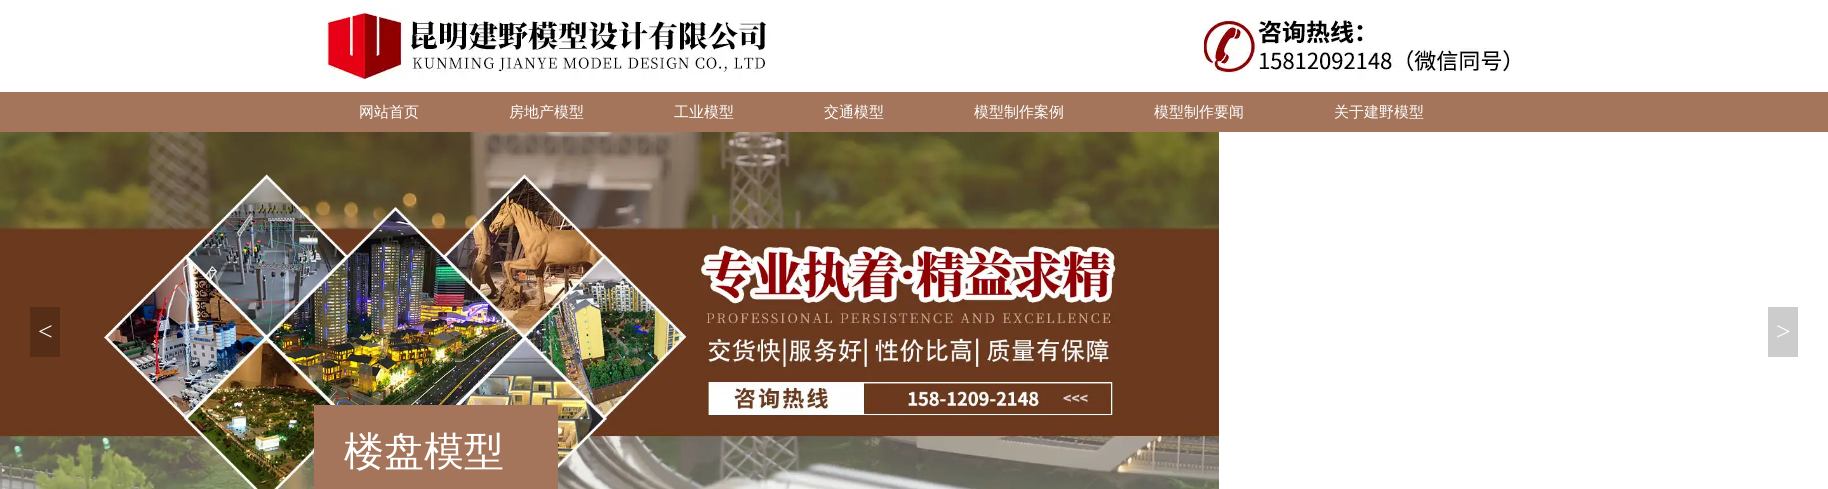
#include <cairo.h>
#include <math.h>
#include <stddef.h>

static cairo_t *ctx;

static void use_color(int r, int g, int b) {
    cairo_set_source_rgb(ctx, r / 255.0, g / 255.0, b / 255.0);
}

static void picture(const char *path, double x, double y, double w, double h) {
    cairo_surface_t *image = cairo_image_surface_create_from_png(path);
    cairo_save(ctx);
    cairo_set_source_surface(ctx, image, x, y);
    cairo_rectangle(ctx, x, y, w, h);
    cairo_fill(ctx);
    cairo_restore(ctx);
    cairo_surface_destroy(image);
}

int main(void) {
    cairo_surface_t *surface = cairo_image_surface_create(CAIRO_FORMAT_RGB24, 1828, 489);
    ctx = cairo_create(surface);
    cairo_font_options_t *options = cairo_font_options_create();
    cairo_font_options_set_hint_metrics(options, CAIRO_HINT_METRICS_OFF);
    cairo_font_options_set_hint_style(options, CAIRO_HINT_STYLE_NONE);
    cairo_set_font_options(ctx, options);
    cairo_set_miter_limit(ctx, 4);
    use_color(255, 255, 255);
    cairo_paint(ctx);
    picture("img1.png", 322, 8, 1188, 72);
    use_color(164, 117, 91);
    cairo_rectangle(ctx, 0, 92, 1828, 40);
    cairo_fill(ctx);
    cairo_select_font_face(ctx, "WenQuanYi Zen Hei Medium", CAIRO_FONT_SLANT_NORMAL, CAIRO_FONT_WEIGHT_NORMAL);
    cairo_set_font_size(ctx, 15);
    use_color(255, 255, 255);
    cairo_move_to(ctx, 359, 117);
    cairo_show_text(ctx, "网站首页");
    cairo_move_to(ctx, 509, 117);
    cairo_show_text(ctx, "房地产模型");
    cairo_move_to(ctx, 674, 117);
    cairo_show_text(ctx, "工业模型");
    cairo_move_to(ctx, 824, 117);
    cairo_show_text(ctx, "交通模型");
    cairo_move_to(ctx, 974, 117);
    cairo_show_text(ctx, "模型制作案例");
    cairo_move_to(ctx, 1154, 117);
    cairo_show_text(ctx, "模型制作要闻");
    cairo_move_to(ctx, 1334, 117);
    cairo_show_text(ctx, "关于建野模型");
    picture("img2.png", 0, 132, 1219, 357);
    use_color(86, 46, 24);
    cairo_rectangle(ctx, 30, 307, 30, 50);
    cairo_fill(ctx);
    cairo_select_font_face(ctx, "Liberation Serif", CAIRO_FONT_SLANT_NORMAL, CAIRO_FONT_WEIGHT_NORMAL);
    cairo_set_font_size(ctx, 26);
    use_color(255, 255, 255);
    cairo_move_to(ctx, 38, 340);
    cairo_show_text(ctx, "<");
    use_color(204, 204, 204);
    cairo_rectangle(ctx, 1768, 307, 30, 50);
    cairo_fill(ctx);
    use_color(255, 255, 255);
    cairo_move_to(ctx, 1776, 340);
    cairo_show_text(ctx, ">");
    use_color(164, 117, 91);
    cairo_rectangle(ctx, 314, 405, 244, 84);
    cairo_fill(ctx);
    cairo_select_font_face(ctx, "WenQuanYi Zen Hei Medium", CAIRO_FONT_SLANT_NORMAL, CAIRO_FONT_WEIGHT_NORMAL);
    cairo_set_font_size(ctx, 40);
    use_color(255, 255, 255);
    cairo_move_to(ctx, 344, 465);
    cairo_show_text(ctx, "楼盘模型");
    cairo_surface_write_to_png(surface, "result.png");
    cairo_font_options_destroy(options);
    cairo_destroy(ctx);
    cairo_surface_destroy(surface);
    return 0;
}
